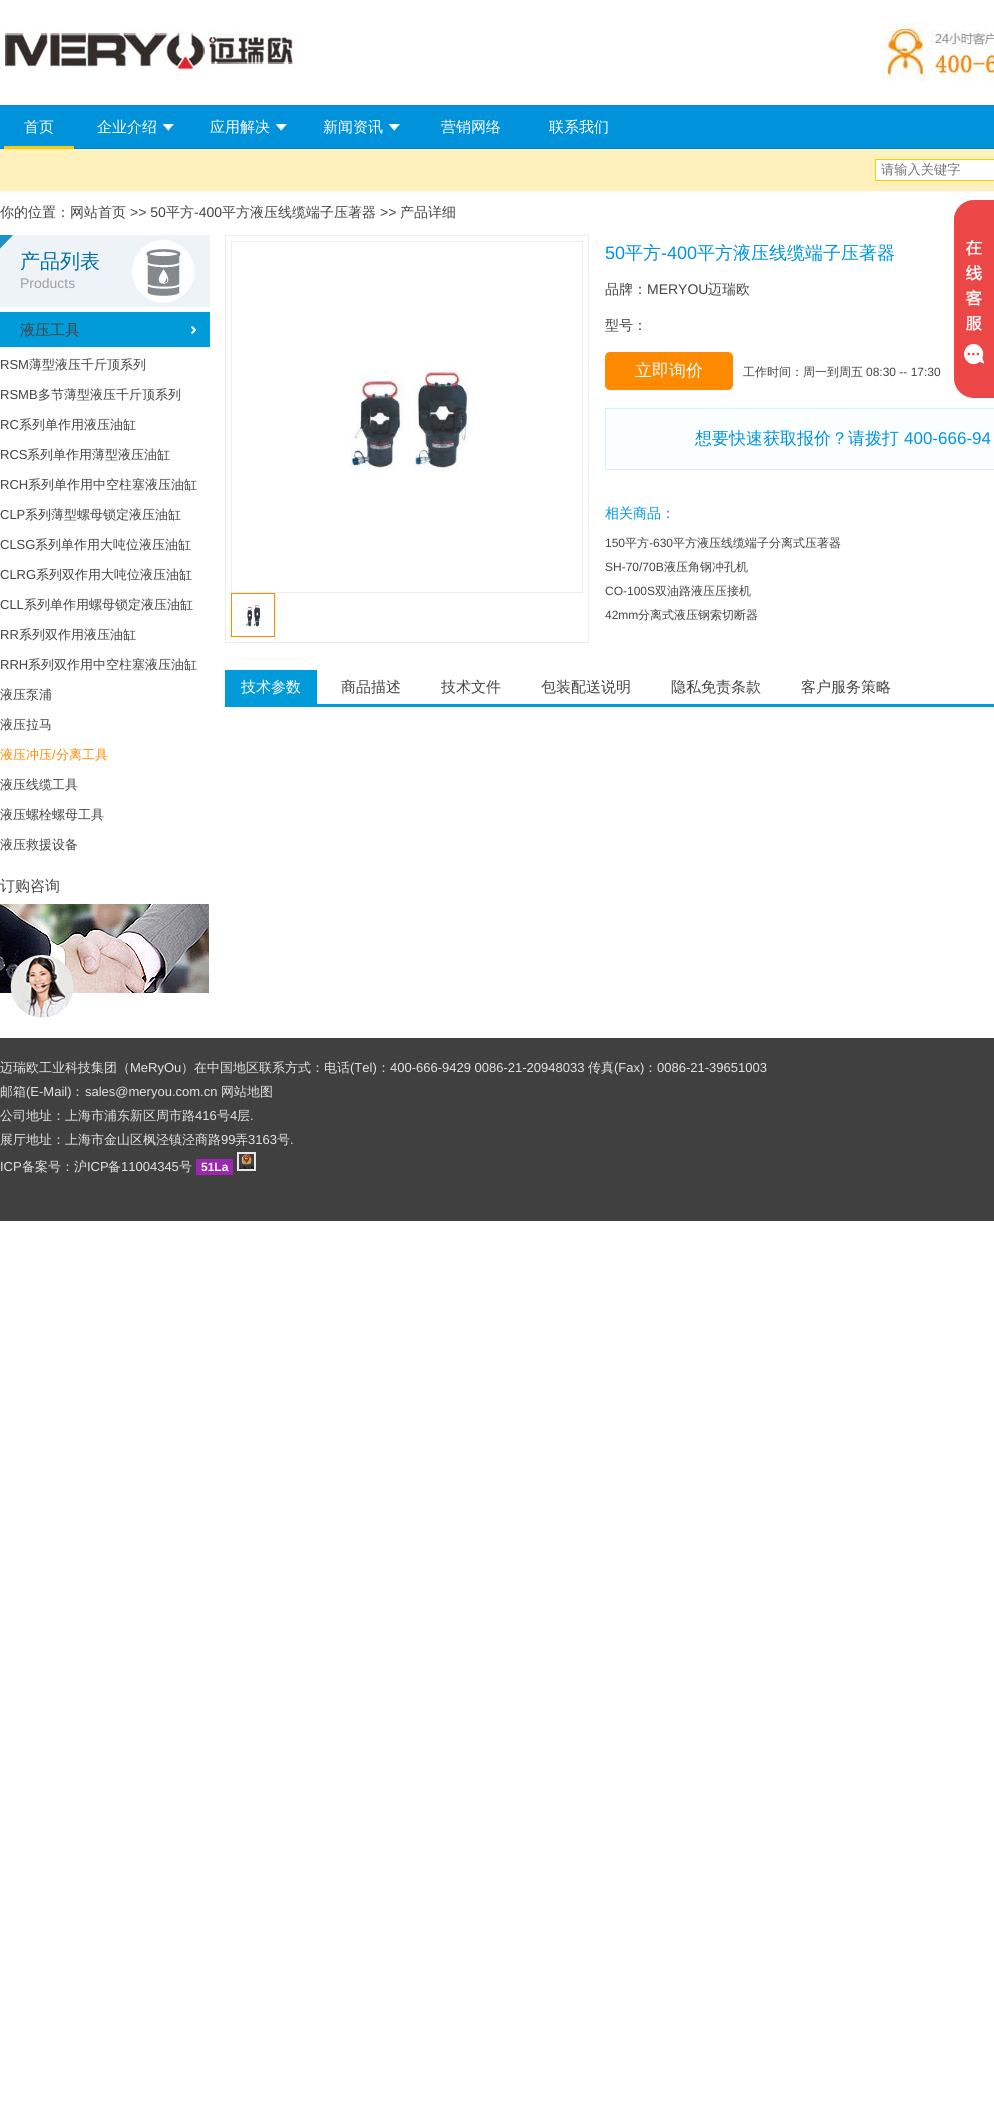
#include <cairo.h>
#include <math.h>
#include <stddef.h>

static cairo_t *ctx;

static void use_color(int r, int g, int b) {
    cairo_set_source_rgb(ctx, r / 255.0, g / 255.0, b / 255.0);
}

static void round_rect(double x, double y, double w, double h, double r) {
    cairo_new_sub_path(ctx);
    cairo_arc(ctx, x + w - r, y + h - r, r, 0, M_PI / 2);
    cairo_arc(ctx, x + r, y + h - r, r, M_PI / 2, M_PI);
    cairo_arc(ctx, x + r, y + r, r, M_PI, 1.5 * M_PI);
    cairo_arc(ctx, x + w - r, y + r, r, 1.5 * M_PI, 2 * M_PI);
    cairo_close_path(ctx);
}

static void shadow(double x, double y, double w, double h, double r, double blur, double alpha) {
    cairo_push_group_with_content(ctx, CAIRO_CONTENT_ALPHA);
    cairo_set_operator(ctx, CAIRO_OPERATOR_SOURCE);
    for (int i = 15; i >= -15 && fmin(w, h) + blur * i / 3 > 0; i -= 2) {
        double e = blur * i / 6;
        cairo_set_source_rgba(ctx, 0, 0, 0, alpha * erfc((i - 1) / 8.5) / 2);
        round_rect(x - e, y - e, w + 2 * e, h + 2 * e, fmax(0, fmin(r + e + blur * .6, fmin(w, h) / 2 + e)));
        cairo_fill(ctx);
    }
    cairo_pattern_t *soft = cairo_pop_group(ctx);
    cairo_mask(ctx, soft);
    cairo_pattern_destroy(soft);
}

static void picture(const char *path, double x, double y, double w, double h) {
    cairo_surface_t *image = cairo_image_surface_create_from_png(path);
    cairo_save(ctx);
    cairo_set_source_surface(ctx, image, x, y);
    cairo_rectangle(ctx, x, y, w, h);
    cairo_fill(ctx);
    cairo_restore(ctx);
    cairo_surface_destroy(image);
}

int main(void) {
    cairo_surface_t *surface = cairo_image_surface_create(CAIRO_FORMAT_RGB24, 994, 2108);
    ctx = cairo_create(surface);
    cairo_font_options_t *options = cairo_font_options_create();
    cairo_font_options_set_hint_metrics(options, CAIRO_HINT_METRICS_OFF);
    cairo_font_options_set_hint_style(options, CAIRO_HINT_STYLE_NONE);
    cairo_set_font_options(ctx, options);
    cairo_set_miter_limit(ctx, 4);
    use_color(255, 255, 255);
    cairo_paint(ctx);
    picture("img1.png", 0, 29, 296, 42);
    picture("img2.png", 883, 22, 111, 60);
    picture("img3.png", 0, 105, 994, 44);
    use_color(255, 204, 0);
    cairo_rectangle(ctx, 4, 146, 70, 3);
    cairo_fill(ctx);
    cairo_select_font_face(ctx, "WenQuanYi Zen Hei Medium", CAIRO_FONT_SLANT_NORMAL, CAIRO_FONT_WEIGHT_NORMAL);
    cairo_set_font_size(ctx, 15);
    use_color(255, 255, 255);
    cairo_move_to(ctx, 24, 132);
    cairo_show_text(ctx, "首页");
    picture("img4.png", 162, 124, 12, 7);
    cairo_move_to(ctx, 97, 132);
    cairo_show_text(ctx, "企业介绍");
    picture("img4.png", 275, 124, 12, 7);
    cairo_move_to(ctx, 210, 132);
    cairo_show_text(ctx, "应用解决");
    picture("img4.png", 388, 124, 12, 7);
    cairo_move_to(ctx, 323, 132);
    cairo_show_text(ctx, "新闻资讯");
    cairo_move_to(ctx, 441, 132);
    cairo_show_text(ctx, "营销网络");
    cairo_move_to(ctx, 549, 132);
    cairo_show_text(ctx, "联系我们");
    use_color(255, 241, 187);
    cairo_rectangle(ctx, 0, 149, 994, 42);
    cairo_fill(ctx);
    use_color(255, 255, 255);
    cairo_rectangle(ctx, 876, 160, 118, 20);
    cairo_fill(ctx);
    use_color(255, 204, 0);
    cairo_rectangle(ctx, 875, 159, 119, 1);
    cairo_fill(ctx);
    cairo_rectangle(ctx, 875, 180, 119, 1);
    cairo_fill(ctx);
    cairo_rectangle(ctx, 875, 159, 1, 22);
    cairo_fill(ctx);
    cairo_set_font_size(ctx, 13.25);
    use_color(117, 117, 117);
    cairo_move_to(ctx, 881, 174);
    cairo_show_text(ctx, "请输入关键字");
    cairo_save(ctx);
    cairo_rectangle(ctx, 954, 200, 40, 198);
    cairo_clip(ctx);
    use_color(228, 232, 236);
    shadow(954, 200, 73, 198, 25, 2.5, 1);
    cairo_restore(ctx);
    picture("img5.png", 954, 200, 40, 198);
    cairo_set_font_size(ctx, 14);
    use_color(68, 68, 68);
    cairo_move_to(ctx, 0, 217);
    cairo_show_text(ctx, "你的位置：网站首页");
    cairo_select_font_face(ctx, "Liberation Sans", CAIRO_FONT_SLANT_NORMAL, CAIRO_FONT_WEIGHT_NORMAL);
    cairo_move_to(ctx, 130, 217);
    cairo_show_text(ctx, ">> 50");
    cairo_select_font_face(ctx, "WenQuanYi Zen Hei Medium", CAIRO_FONT_SLANT_NORMAL, CAIRO_FONT_WEIGHT_NORMAL);
    cairo_move_to(ctx, 166, 217);
    cairo_show_text(ctx, "平方");
    cairo_select_font_face(ctx, "Liberation Sans", CAIRO_FONT_SLANT_NORMAL, CAIRO_FONT_WEIGHT_NORMAL);
    cairo_move_to(ctx, 194, 217);
    cairo_show_text(ctx, "-400");
    cairo_select_font_face(ctx, "WenQuanYi Zen Hei Medium", CAIRO_FONT_SLANT_NORMAL, CAIRO_FONT_WEIGHT_NORMAL);
    cairo_move_to(ctx, 222, 217);
    cairo_show_text(ctx, "平方液压线缆端子压著器");
    cairo_select_font_face(ctx, "Liberation Sans", CAIRO_FONT_SLANT_NORMAL, CAIRO_FONT_WEIGHT_NORMAL);
    cairo_move_to(ctx, 380, 217);
    cairo_show_text(ctx, ">>");
    cairo_select_font_face(ctx, "WenQuanYi Zen Hei Medium", CAIRO_FONT_SLANT_NORMAL, CAIRO_FONT_WEIGHT_NORMAL);
    cairo_move_to(ctx, 400, 217);
    cairo_show_text(ctx, "产品详细");
    picture("img6.png", 0, 235, 210, 72);
    cairo_set_font_size(ctx, 20);
    use_color(0, 110, 164);
    cairo_move_to(ctx, 20, 268);
    cairo_show_text(ctx, "产品列表");
    cairo_select_font_face(ctx, "Liberation Sans", CAIRO_FONT_SLANT_NORMAL, CAIRO_FONT_WEIGHT_NORMAL);
    cairo_set_font_size(ctx, 14);
    use_color(160, 160, 160);
    cairo_move_to(ctx, 20, 288);
    cairo_show_text(ctx, "Products");
    picture("img7.png", 0, 312, 210, 35);
    cairo_select_font_face(ctx, "WenQuanYi Zen Hei Medium", CAIRO_FONT_SLANT_NORMAL, CAIRO_FONT_WEIGHT_NORMAL);
    cairo_set_font_size(ctx, 15);
    use_color(68, 68, 68);
    cairo_move_to(ctx, 20, 335);
    cairo_show_text(ctx, "液压工具");
    cairo_select_font_face(ctx, "Liberation Sans", CAIRO_FONT_SLANT_NORMAL, CAIRO_FONT_WEIGHT_NORMAL);
    cairo_set_font_size(ctx, 13);
    cairo_move_to(ctx, 0, 369);
    cairo_show_text(ctx, "RSM");
    cairo_select_font_face(ctx, "WenQuanYi Zen Hei Medium", CAIRO_FONT_SLANT_NORMAL, CAIRO_FONT_WEIGHT_NORMAL);
    cairo_move_to(ctx, 29, 369);
    cairo_show_text(ctx, "薄型液压千斤顶系列");
    cairo_select_font_face(ctx, "Liberation Sans", CAIRO_FONT_SLANT_NORMAL, CAIRO_FONT_WEIGHT_NORMAL);
    cairo_move_to(ctx, 0, 399);
    cairo_show_text(ctx, "RSMB");
    cairo_select_font_face(ctx, "WenQuanYi Zen Hei Medium", CAIRO_FONT_SLANT_NORMAL, CAIRO_FONT_WEIGHT_NORMAL);
    cairo_move_to(ctx, 38, 399);
    cairo_show_text(ctx, "多节薄型液压千斤顶系列");
    cairo_select_font_face(ctx, "Liberation Sans", CAIRO_FONT_SLANT_NORMAL, CAIRO_FONT_WEIGHT_NORMAL);
    cairo_move_to(ctx, 0, 429);
    cairo_show_text(ctx, "RC");
    cairo_select_font_face(ctx, "WenQuanYi Zen Hei Medium", CAIRO_FONT_SLANT_NORMAL, CAIRO_FONT_WEIGHT_NORMAL);
    cairo_move_to(ctx, 19, 429);
    cairo_show_text(ctx, "系列单作用液压油缸");
    cairo_select_font_face(ctx, "Liberation Sans", CAIRO_FONT_SLANT_NORMAL, CAIRO_FONT_WEIGHT_NORMAL);
    cairo_move_to(ctx, 0, 459);
    cairo_show_text(ctx, "RCS");
    cairo_select_font_face(ctx, "WenQuanYi Zen Hei Medium", CAIRO_FONT_SLANT_NORMAL, CAIRO_FONT_WEIGHT_NORMAL);
    cairo_move_to(ctx, 27, 459);
    cairo_show_text(ctx, "系列单作用薄型液压油缸");
    cairo_select_font_face(ctx, "Liberation Sans", CAIRO_FONT_SLANT_NORMAL, CAIRO_FONT_WEIGHT_NORMAL);
    cairo_move_to(ctx, 0, 489);
    cairo_show_text(ctx, "RCH");
    cairo_select_font_face(ctx, "WenQuanYi Zen Hei Medium", CAIRO_FONT_SLANT_NORMAL, CAIRO_FONT_WEIGHT_NORMAL);
    cairo_move_to(ctx, 28, 489);
    cairo_show_text(ctx, "系列单作用中空柱塞液压油缸");
    cairo_select_font_face(ctx, "Liberation Sans", CAIRO_FONT_SLANT_NORMAL, CAIRO_FONT_WEIGHT_NORMAL);
    cairo_move_to(ctx, 0, 519);
    cairo_show_text(ctx, "CLP");
    cairo_select_font_face(ctx, "WenQuanYi Zen Hei Medium", CAIRO_FONT_SLANT_NORMAL, CAIRO_FONT_WEIGHT_NORMAL);
    cairo_move_to(ctx, 25, 519);
    cairo_show_text(ctx, "系列薄型螺母锁定液压油缸");
    cairo_select_font_face(ctx, "Liberation Sans", CAIRO_FONT_SLANT_NORMAL, CAIRO_FONT_WEIGHT_NORMAL);
    cairo_move_to(ctx, 0, 549);
    cairo_show_text(ctx, "CLSG");
    cairo_select_font_face(ctx, "WenQuanYi Zen Hei Medium", CAIRO_FONT_SLANT_NORMAL, CAIRO_FONT_WEIGHT_NORMAL);
    cairo_move_to(ctx, 35, 549);
    cairo_show_text(ctx, "系列单作用大吨位液压油缸");
    cairo_select_font_face(ctx, "Liberation Sans", CAIRO_FONT_SLANT_NORMAL, CAIRO_FONT_WEIGHT_NORMAL);
    cairo_move_to(ctx, 0, 579);
    cairo_show_text(ctx, "CLRG");
    cairo_select_font_face(ctx, "WenQuanYi Zen Hei Medium", CAIRO_FONT_SLANT_NORMAL, CAIRO_FONT_WEIGHT_NORMAL);
    cairo_move_to(ctx, 36, 579);
    cairo_show_text(ctx, "系列双作用大吨位液压油缸");
    cairo_select_font_face(ctx, "Liberation Sans", CAIRO_FONT_SLANT_NORMAL, CAIRO_FONT_WEIGHT_NORMAL);
    cairo_move_to(ctx, 0, 609);
    cairo_show_text(ctx, "CLL");
    cairo_select_font_face(ctx, "WenQuanYi Zen Hei Medium", CAIRO_FONT_SLANT_NORMAL, CAIRO_FONT_WEIGHT_NORMAL);
    cairo_move_to(ctx, 24, 609);
    cairo_show_text(ctx, "系列单作用螺母锁定液压油缸");
    cairo_select_font_face(ctx, "Liberation Sans", CAIRO_FONT_SLANT_NORMAL, CAIRO_FONT_WEIGHT_NORMAL);
    cairo_move_to(ctx, 0, 639);
    cairo_show_text(ctx, "RR");
    cairo_select_font_face(ctx, "WenQuanYi Zen Hei Medium", CAIRO_FONT_SLANT_NORMAL, CAIRO_FONT_WEIGHT_NORMAL);
    cairo_move_to(ctx, 19, 639);
    cairo_show_text(ctx, "系列双作用液压油缸");
    cairo_select_font_face(ctx, "Liberation Sans", CAIRO_FONT_SLANT_NORMAL, CAIRO_FONT_WEIGHT_NORMAL);
    cairo_move_to(ctx, 0, 669);
    cairo_show_text(ctx, "RRH");
    cairo_select_font_face(ctx, "WenQuanYi Zen Hei Medium", CAIRO_FONT_SLANT_NORMAL, CAIRO_FONT_WEIGHT_NORMAL);
    cairo_move_to(ctx, 28, 669);
    cairo_show_text(ctx, "系列双作用中空柱塞液压油缸");
    cairo_move_to(ctx, 0, 699);
    cairo_show_text(ctx, "液压泵浦");
    cairo_move_to(ctx, 0, 729);
    cairo_show_text(ctx, "液压拉马");
    use_color(254, 138, 2);
    cairo_move_to(ctx, 0, 759);
    cairo_show_text(ctx, "液压冲压");
    cairo_select_font_face(ctx, "Liberation Sans", CAIRO_FONT_SLANT_NORMAL, CAIRO_FONT_WEIGHT_NORMAL);
    cairo_move_to(ctx, 52, 759);
    cairo_show_text(ctx, "/");
    cairo_select_font_face(ctx, "WenQuanYi Zen Hei Medium", CAIRO_FONT_SLANT_NORMAL, CAIRO_FONT_WEIGHT_NORMAL);
    cairo_move_to(ctx, 56, 759);
    cairo_show_text(ctx, "分离工具");
    use_color(68, 68, 68);
    cairo_move_to(ctx, 0, 789);
    cairo_show_text(ctx, "液压线缆工具");
    cairo_move_to(ctx, 0, 819);
    cairo_show_text(ctx, "液压螺栓螺母工具");
    cairo_move_to(ctx, 0, 849);
    cairo_show_text(ctx, "液压救援设备");
    cairo_set_font_size(ctx, 15);
    cairo_move_to(ctx, 0, 891);
    cairo_show_text(ctx, "订购咨询");
    picture("img8.png", 0, 904, 210, 114);
    cairo_rectangle(ctx, 225.5, 235.5, 363, 407);
    use_color(237, 237, 237);
    cairo_set_line_width(ctx, 1);
    cairo_stroke(ctx);
    cairo_rectangle(ctx, 231.5, 241.5, 351, 351);
    cairo_stroke(ctx);
    picture("img9.png", 350, 365, 119, 107);
    cairo_rectangle(ctx, 231.5, 593.5, 43, 43);
    use_color(254, 138, 2);
    cairo_stroke(ctx);
    picture("img10.png", 246, 605, 15, 22);
    cairo_select_font_face(ctx, "Liberation Sans", CAIRO_FONT_SLANT_NORMAL, CAIRO_FONT_WEIGHT_NORMAL);
    cairo_set_font_size(ctx, 18);
    use_color(0, 147, 221);
    cairo_move_to(ctx, 605, 259);
    cairo_show_text(ctx, "50");
    cairo_select_font_face(ctx, "WenQuanYi Zen Hei Medium", CAIRO_FONT_SLANT_NORMAL, CAIRO_FONT_WEIGHT_NORMAL);
    cairo_move_to(ctx, 625, 259);
    cairo_show_text(ctx, "平方");
    cairo_select_font_face(ctx, "Liberation Sans", CAIRO_FONT_SLANT_NORMAL, CAIRO_FONT_WEIGHT_NORMAL);
    cairo_move_to(ctx, 661, 259);
    cairo_show_text(ctx, "-400");
    cairo_select_font_face(ctx, "WenQuanYi Zen Hei Medium", CAIRO_FONT_SLANT_NORMAL, CAIRO_FONT_WEIGHT_NORMAL);
    cairo_move_to(ctx, 697, 259);
    cairo_show_text(ctx, "平方液压线缆端子压著器");
    cairo_set_font_size(ctx, 14);
    use_color(68, 68, 68);
    cairo_move_to(ctx, 605, 294);
    cairo_show_text(ctx, "品牌：");
    cairo_select_font_face(ctx, "Liberation Sans", CAIRO_FONT_SLANT_NORMAL, CAIRO_FONT_WEIGHT_NORMAL);
    cairo_move_to(ctx, 647, 294);
    cairo_show_text(ctx, "MERYOU");
    cairo_select_font_face(ctx, "WenQuanYi Zen Hei Medium", CAIRO_FONT_SLANT_NORMAL, CAIRO_FONT_WEIGHT_NORMAL);
    cairo_move_to(ctx, 708, 294);
    cairo_show_text(ctx, "迈瑞欧");
    cairo_move_to(ctx, 605, 330);
    cairo_show_text(ctx, "型号：");
    use_color(254, 138, 2);
    round_rect(605, 352, 128, 38, 5);
    cairo_fill(ctx);
    cairo_set_font_size(ctx, 17);
    use_color(255, 255, 255);
    cairo_move_to(ctx, 635, 376);
    cairo_show_text(ctx, "立即询价");
    cairo_set_font_size(ctx, 12);
    use_color(68, 68, 68);
    cairo_move_to(ctx, 743, 376);
    cairo_show_text(ctx, "工作时间：周一到周五");
    cairo_select_font_face(ctx, "Liberation Sans", CAIRO_FONT_SLANT_NORMAL, CAIRO_FONT_WEIGHT_NORMAL);
    cairo_move_to(ctx, 866, 376);
    cairo_show_text(ctx, "08:30 -- 17:30");
    use_color(251, 254, 255);
    cairo_rectangle(ctx, 605.5, 408.5, 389, 61);
    cairo_fill_preserve(ctx);
    use_color(218, 240, 250);
    cairo_stroke(ctx);
    cairo_select_font_face(ctx, "WenQuanYi Zen Hei Medium", CAIRO_FONT_SLANT_NORMAL, CAIRO_FONT_WEIGHT_NORMAL);
    cairo_set_font_size(ctx, 17);
    use_color(0, 147, 221);
    cairo_move_to(ctx, 695, 444);
    cairo_show_text(ctx, "想要快速获取报价？请拨打");
    cairo_select_font_face(ctx, "Liberation Sans", CAIRO_FONT_SLANT_NORMAL, CAIRO_FONT_WEIGHT_NORMAL);
    cairo_move_to(ctx, 904, 444);
    cairo_show_text(ctx, "400-666-94");
    cairo_select_font_face(ctx, "WenQuanYi Zen Hei Medium", CAIRO_FONT_SLANT_NORMAL, CAIRO_FONT_WEIGHT_NORMAL);
    cairo_set_font_size(ctx, 14);
    cairo_move_to(ctx, 605, 518);
    cairo_show_text(ctx, "相关商品：");
    cairo_select_font_face(ctx, "Liberation Sans", CAIRO_FONT_SLANT_NORMAL, CAIRO_FONT_WEIGHT_NORMAL);
    cairo_set_font_size(ctx, 12);
    use_color(68, 68, 68);
    cairo_move_to(ctx, 605, 547);
    cairo_show_text(ctx, "150");
    cairo_select_font_face(ctx, "WenQuanYi Zen Hei Medium", CAIRO_FONT_SLANT_NORMAL, CAIRO_FONT_WEIGHT_NORMAL);
    cairo_move_to(ctx, 625, 547);
    cairo_show_text(ctx, "平方");
    cairo_select_font_face(ctx, "Liberation Sans", CAIRO_FONT_SLANT_NORMAL, CAIRO_FONT_WEIGHT_NORMAL);
    cairo_move_to(ctx, 649, 547);
    cairo_show_text(ctx, "-630");
    cairo_select_font_face(ctx, "WenQuanYi Zen Hei Medium", CAIRO_FONT_SLANT_NORMAL, CAIRO_FONT_WEIGHT_NORMAL);
    cairo_move_to(ctx, 673, 547);
    cairo_show_text(ctx, "平方液压线缆端子分离式压著器");
    cairo_select_font_face(ctx, "Liberation Sans", CAIRO_FONT_SLANT_NORMAL, CAIRO_FONT_WEIGHT_NORMAL);
    cairo_move_to(ctx, 605, 571);
    cairo_show_text(ctx, "SH-70/70B");
    cairo_select_font_face(ctx, "WenQuanYi Zen Hei Medium", CAIRO_FONT_SLANT_NORMAL, CAIRO_FONT_WEIGHT_NORMAL);
    cairo_move_to(ctx, 664, 571);
    cairo_show_text(ctx, "液压角钢冲孔机");
    cairo_select_font_face(ctx, "Liberation Sans", CAIRO_FONT_SLANT_NORMAL, CAIRO_FONT_WEIGHT_NORMAL);
    cairo_move_to(ctx, 605, 595);
    cairo_show_text(ctx, "CO-100S");
    cairo_select_font_face(ctx, "WenQuanYi Zen Hei Medium", CAIRO_FONT_SLANT_NORMAL, CAIRO_FONT_WEIGHT_NORMAL);
    cairo_move_to(ctx, 655, 595);
    cairo_show_text(ctx, "双油路液压压接机");
    cairo_select_font_face(ctx, "Liberation Sans", CAIRO_FONT_SLANT_NORMAL, CAIRO_FONT_WEIGHT_NORMAL);
    cairo_move_to(ctx, 605, 619);
    cairo_show_text(ctx, "42mm");
    cairo_select_font_face(ctx, "WenQuanYi Zen Hei Medium", CAIRO_FONT_SLANT_NORMAL, CAIRO_FONT_WEIGHT_NORMAL);
    cairo_move_to(ctx, 638, 619);
    cairo_show_text(ctx, "分离式液压钢索切断器");
    use_color(0, 155, 216);
    cairo_rectangle(ctx, 225, 704, 769, 3);
    cairo_fill(ctx);
    cairo_rectangle(ctx, 225, 670, 92, 34);
    cairo_fill(ctx);
    cairo_set_font_size(ctx, 15);
    use_color(255, 255, 255);
    cairo_move_to(ctx, 241, 692);
    cairo_show_text(ctx, "技术参数");
    use_color(68, 68, 68);
    cairo_move_to(ctx, 341, 692);
    cairo_show_text(ctx, "商品描述");
    cairo_move_to(ctx, 441, 692);
    cairo_show_text(ctx, "技术文件");
    cairo_move_to(ctx, 541, 692);
    cairo_show_text(ctx, "包装配送说明");
    cairo_move_to(ctx, 671, 692);
    cairo_show_text(ctx, "隐私免责条款");
    cairo_move_to(ctx, 801, 692);
    cairo_show_text(ctx, "客户服务策略");
    use_color(64, 64, 64);
    cairo_rectangle(ctx, 0, 1038, 994, 183);
    cairo_fill(ctx);
    cairo_set_font_size(ctx, 13);
    use_color(228, 228, 228);
    cairo_move_to(ctx, 0, 1072);
    cairo_show_text(ctx, "迈瑞欧工业科技集团（");
    cairo_select_font_face(ctx, "Liberation Sans", CAIRO_FONT_SLANT_NORMAL, CAIRO_FONT_WEIGHT_NORMAL);
    cairo_move_to(ctx, 130, 1072);
    cairo_show_text(ctx, "MeRyOu");
    cairo_select_font_face(ctx, "WenQuanYi Zen Hei Medium", CAIRO_FONT_SLANT_NORMAL, CAIRO_FONT_WEIGHT_NORMAL);
    cairo_move_to(ctx, 181, 1072);
    cairo_show_text(ctx, "）在中国地区联系方式：电话");
    cairo_select_font_face(ctx, "Liberation Sans", CAIRO_FONT_SLANT_NORMAL, CAIRO_FONT_WEIGHT_NORMAL);
    cairo_move_to(ctx, 350, 1072);
    cairo_show_text(ctx, "(Tel)");
    cairo_select_font_face(ctx, "WenQuanYi Zen Hei Medium", CAIRO_FONT_SLANT_NORMAL, CAIRO_FONT_WEIGHT_NORMAL);
    cairo_move_to(ctx, 377, 1072);
    cairo_show_text(ctx, "：");
    cairo_select_font_face(ctx, "Liberation Sans", CAIRO_FONT_SLANT_NORMAL, CAIRO_FONT_WEIGHT_NORMAL);
    cairo_move_to(ctx, 390, 1072);
    cairo_show_text(ctx, "400-666-9429 0086-21-20948033");
    cairo_select_font_face(ctx, "WenQuanYi Zen Hei Medium", CAIRO_FONT_SLANT_NORMAL, CAIRO_FONT_WEIGHT_NORMAL);
    cairo_move_to(ctx, 588, 1072);
    cairo_show_text(ctx, "传真");
    cairo_select_font_face(ctx, "Liberation Sans", CAIRO_FONT_SLANT_NORMAL, CAIRO_FONT_WEIGHT_NORMAL);
    cairo_move_to(ctx, 614, 1072);
    cairo_show_text(ctx, "(Fax)");
    cairo_select_font_face(ctx, "WenQuanYi Zen Hei Medium", CAIRO_FONT_SLANT_NORMAL, CAIRO_FONT_WEIGHT_NORMAL);
    cairo_move_to(ctx, 644, 1072);
    cairo_show_text(ctx, "：");
    cairo_select_font_face(ctx, "Liberation Sans", CAIRO_FONT_SLANT_NORMAL, CAIRO_FONT_WEIGHT_NORMAL);
    cairo_move_to(ctx, 657, 1072);
    cairo_show_text(ctx, "0086-21-39651003");
    cairo_select_font_face(ctx, "WenQuanYi Zen Hei Medium", CAIRO_FONT_SLANT_NORMAL, CAIRO_FONT_WEIGHT_NORMAL);
    cairo_move_to(ctx, 0, 1096);
    cairo_show_text(ctx, "邮箱");
    cairo_select_font_face(ctx, "Liberation Sans", CAIRO_FONT_SLANT_NORMAL, CAIRO_FONT_WEIGHT_NORMAL);
    cairo_move_to(ctx, 26, 1096);
    cairo_show_text(ctx, "(E-Mail)");
    cairo_select_font_face(ctx, "WenQuanYi Zen Hei Medium", CAIRO_FONT_SLANT_NORMAL, CAIRO_FONT_WEIGHT_NORMAL);
    cairo_move_to(ctx, 71, 1096);
    cairo_show_text(ctx, "：");
    cairo_select_font_face(ctx, "Liberation Sans", CAIRO_FONT_SLANT_NORMAL, CAIRO_FONT_WEIGHT_NORMAL);
    cairo_move_to(ctx, 85, 1096);
    cairo_show_text(ctx, "sales@meryou.com.cn");
    cairo_select_font_face(ctx, "WenQuanYi Zen Hei Medium", CAIRO_FONT_SLANT_NORMAL, CAIRO_FONT_WEIGHT_NORMAL);
    cairo_move_to(ctx, 221, 1096);
    cairo_show_text(ctx, "网站地图");
    cairo_move_to(ctx, 0, 1120);
    cairo_show_text(ctx, "公司地址：上海市浦东新区周市路");
    cairo_select_font_face(ctx, "Liberation Sans", CAIRO_FONT_SLANT_NORMAL, CAIRO_FONT_WEIGHT_NORMAL);
    cairo_move_to(ctx, 195, 1120);
    cairo_show_text(ctx, "416");
    cairo_select_font_face(ctx, "WenQuanYi Zen Hei Medium", CAIRO_FONT_SLANT_NORMAL, CAIRO_FONT_WEIGHT_NORMAL);
    cairo_move_to(ctx, 217, 1120);
    cairo_show_text(ctx, "号");
    cairo_select_font_face(ctx, "Liberation Sans", CAIRO_FONT_SLANT_NORMAL, CAIRO_FONT_WEIGHT_NORMAL);
    cairo_move_to(ctx, 230, 1120);
    cairo_show_text(ctx, "4");
    cairo_select_font_face(ctx, "WenQuanYi Zen Hei Medium", CAIRO_FONT_SLANT_NORMAL, CAIRO_FONT_WEIGHT_NORMAL);
    cairo_move_to(ctx, 237, 1120);
    cairo_show_text(ctx, "层");
    cairo_select_font_face(ctx, "Liberation Sans", CAIRO_FONT_SLANT_NORMAL, CAIRO_FONT_WEIGHT_NORMAL);
    cairo_move_to(ctx, 250, 1120);
    cairo_show_text(ctx, ".");
    cairo_select_font_face(ctx, "WenQuanYi Zen Hei Medium", CAIRO_FONT_SLANT_NORMAL, CAIRO_FONT_WEIGHT_NORMAL);
    cairo_move_to(ctx, 0, 1144);
    cairo_show_text(ctx, "展厅地址：上海市金山区枫泾镇泾商路");
    cairo_select_font_face(ctx, "Liberation Sans", CAIRO_FONT_SLANT_NORMAL, CAIRO_FONT_WEIGHT_NORMAL);
    cairo_move_to(ctx, 221, 1144);
    cairo_show_text(ctx, "99");
    cairo_select_font_face(ctx, "WenQuanYi Zen Hei Medium", CAIRO_FONT_SLANT_NORMAL, CAIRO_FONT_WEIGHT_NORMAL);
    cairo_move_to(ctx, 235, 1144);
    cairo_show_text(ctx, "弄");
    cairo_select_font_face(ctx, "Liberation Sans", CAIRO_FONT_SLANT_NORMAL, CAIRO_FONT_WEIGHT_NORMAL);
    cairo_move_to(ctx, 248, 1144);
    cairo_show_text(ctx, "3163");
    cairo_select_font_face(ctx, "WenQuanYi Zen Hei Medium", CAIRO_FONT_SLANT_NORMAL, CAIRO_FONT_WEIGHT_NORMAL);
    cairo_move_to(ctx, 277, 1144);
    cairo_show_text(ctx, "号");
    cairo_select_font_face(ctx, "Liberation Sans", CAIRO_FONT_SLANT_NORMAL, CAIRO_FONT_WEIGHT_NORMAL);
    cairo_move_to(ctx, 290, 1144);
    cairo_show_text(ctx, ".");
    cairo_rectangle(ctx, 238, 1153, 17, 17);
    use_color(231, 231, 231);
    cairo_set_line_width(ctx, 2);
    cairo_stroke(ctx);
    use_color(228, 228, 228);
    cairo_move_to(ctx, 0, 1171);
    cairo_show_text(ctx, "ICP");
    cairo_select_font_face(ctx, "WenQuanYi Zen Hei Medium", CAIRO_FONT_SLANT_NORMAL, CAIRO_FONT_WEIGHT_NORMAL);
    cairo_move_to(ctx, 22, 1171);
    cairo_show_text(ctx, "备案号：沪");
    cairo_select_font_face(ctx, "Liberation Sans", CAIRO_FONT_SLANT_NORMAL, CAIRO_FONT_WEIGHT_NORMAL);
    cairo_move_to(ctx, 87, 1171);
    cairo_show_text(ctx, "ICP");
    cairo_select_font_face(ctx, "WenQuanYi Zen Hei Medium", CAIRO_FONT_SLANT_NORMAL, CAIRO_FONT_WEIGHT_NORMAL);
    cairo_move_to(ctx, 108, 1171);
    cairo_show_text(ctx, "备");
    cairo_select_font_face(ctx, "Liberation Sans", CAIRO_FONT_SLANT_NORMAL, CAIRO_FONT_WEIGHT_NORMAL);
    cairo_move_to(ctx, 121, 1171);
    cairo_show_text(ctx, "11004345");
    cairo_select_font_face(ctx, "WenQuanYi Zen Hei Medium", CAIRO_FONT_SLANT_NORMAL, CAIRO_FONT_WEIGHT_NORMAL);
    cairo_move_to(ctx, 179, 1171);
    cairo_show_text(ctx, "号");
    use_color(155, 39, 176);
    cairo_rectangle(ctx, 196, 1159, 37, 16);
    cairo_fill(ctx);
    cairo_select_font_face(ctx, "Liberation Sans", CAIRO_FONT_SLANT_NORMAL, CAIRO_FONT_WEIGHT_BOLD);
    cairo_set_font_size(ctx, 12);
    use_color(255, 255, 255);
    cairo_move_to(ctx, 201, 1171);
    cairo_show_text(ctx, "51La");
    picture("img11.png", 239, 1154, 15, 15);
    cairo_surface_write_to_png(surface, "result.png");
    cairo_font_options_destroy(options);
    cairo_destroy(ctx);
    cairo_surface_destroy(surface);
    return 0;
}
